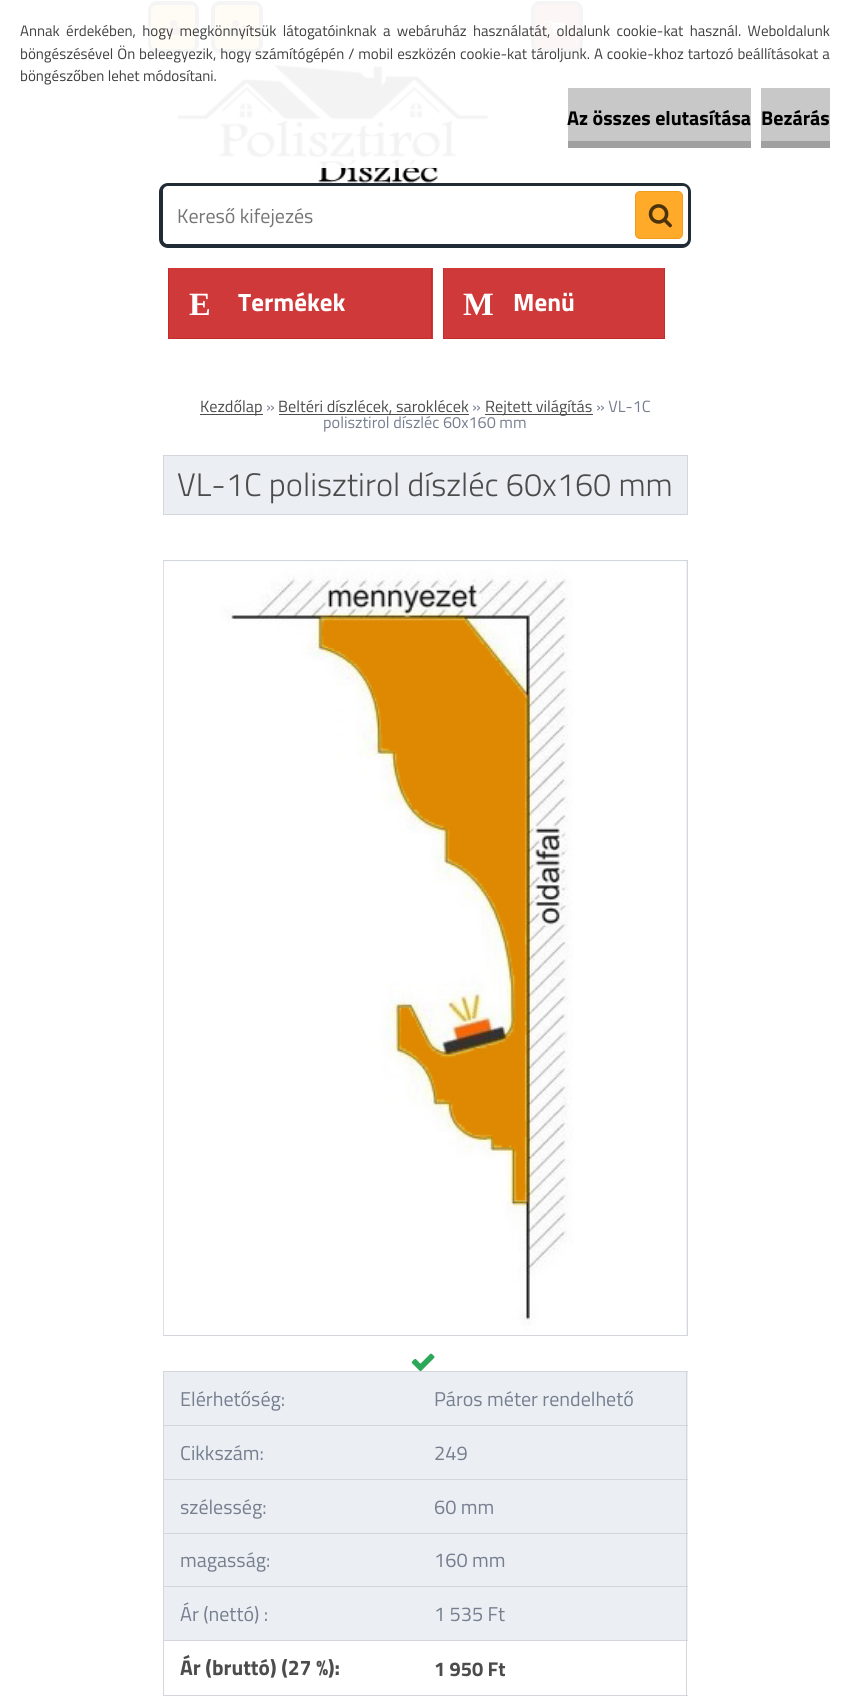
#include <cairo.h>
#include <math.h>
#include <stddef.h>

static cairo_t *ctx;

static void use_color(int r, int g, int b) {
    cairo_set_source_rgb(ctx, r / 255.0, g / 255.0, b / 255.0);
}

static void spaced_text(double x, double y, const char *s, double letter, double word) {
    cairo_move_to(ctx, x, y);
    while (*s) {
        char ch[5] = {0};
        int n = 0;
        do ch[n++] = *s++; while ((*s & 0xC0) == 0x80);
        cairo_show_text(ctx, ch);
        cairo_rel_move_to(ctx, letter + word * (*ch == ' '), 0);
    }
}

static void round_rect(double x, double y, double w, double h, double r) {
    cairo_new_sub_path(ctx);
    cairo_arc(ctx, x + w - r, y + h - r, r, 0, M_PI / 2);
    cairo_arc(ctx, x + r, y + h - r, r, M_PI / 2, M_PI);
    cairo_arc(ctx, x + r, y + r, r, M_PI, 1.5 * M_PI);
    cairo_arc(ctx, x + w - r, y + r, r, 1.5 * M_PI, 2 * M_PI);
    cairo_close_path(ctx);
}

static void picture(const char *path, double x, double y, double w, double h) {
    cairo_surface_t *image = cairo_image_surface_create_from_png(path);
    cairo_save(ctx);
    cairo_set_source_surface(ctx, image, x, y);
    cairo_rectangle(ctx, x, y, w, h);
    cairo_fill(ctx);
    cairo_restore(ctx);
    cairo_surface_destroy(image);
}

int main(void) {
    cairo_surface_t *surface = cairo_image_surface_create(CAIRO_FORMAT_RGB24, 850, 1705);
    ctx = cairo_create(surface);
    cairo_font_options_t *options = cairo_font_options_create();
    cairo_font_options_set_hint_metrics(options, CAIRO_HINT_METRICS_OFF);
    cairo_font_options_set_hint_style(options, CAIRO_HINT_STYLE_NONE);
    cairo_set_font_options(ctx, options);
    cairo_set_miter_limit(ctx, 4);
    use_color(255, 255, 255);
    cairo_paint(ctx);
    picture("img1.png", 176, 63, 314, 120);
    round_rect(150, 3, 47, 48, 7);
    use_color(33, 43, 53);
    cairo_set_line_width(ctx, 4);
    cairo_stroke(ctx);
    use_color(255, 170, 41);
    round_rect(151, 5, 44, 44, 5);
    cairo_fill(ctx);
    picture("img3.png", 167, 20, 13, 15);
    round_rect(213, 3, 48, 48, 7);
    use_color(33, 43, 53);
    cairo_stroke(ctx);
    use_color(255, 170, 41);
    round_rect(215, 5, 44, 44, 5);
    cairo_fill(ctx);
    picture("img4.png", 228, 20, 21, 15);
    round_rect(533, 3, 48, 48, 7);
    use_color(33, 43, 53);
    cairo_stroke(ctx);
    use_color(207, 57, 57);
    round_rect(535, 5, 44, 44, 5);
    cairo_fill(ctx);
    picture("img5.png", 548, 21, 17, 14);
    cairo_set_source_rgba(ctx, 1, 1, 1, 0.95);
    cairo_rectangle(ctx, 148, 1, 435, 167);
    cairo_fill(ctx);
    cairo_select_font_face(ctx, "Titillium Web", CAIRO_FONT_SLANT_NORMAL, CAIRO_FONT_WEIGHT_NORMAL);
    cairo_set_font_size(ctx, 15);
    use_color(63, 63, 63);
    spaced_text(20, 36, "Annak érdekében, hogy megkönnyítsük látogatóinknak a webáruház használatát, oldalunk cookie-kat használ. Weboldalunk", 0, 3);
    spaced_text(20, 59, "böngészésével Ön beleegyezik, hogy számítógépén / mobil eszközén cookie-kat tároljunk. A cookie-khoz tartozó beállításokat a", 0, 0.6);
    cairo_move_to(ctx, 20, 81);
    cairo_show_text(ctx, "böngészőben lehet módosítani.");
    use_color(200, 200, 200);
    cairo_rectangle(ctx, 568, 88, 183, 53);
    cairo_fill(ctx);
    use_color(160, 160, 160);
    cairo_rectangle(ctx, 568, 141, 183, 7);
    cairo_fill(ctx);
    cairo_select_font_face(ctx, "Titillium Web", CAIRO_FONT_SLANT_NORMAL, CAIRO_FONT_WEIGHT_BOLD);
    cairo_set_font_size(ctx, 20);
    use_color(0, 0, 0);
    cairo_move_to(ctx, 567, 125);
    cairo_show_text(ctx, "Az összes elutasítása");
    use_color(200, 200, 200);
    cairo_rectangle(ctx, 761, 88, 69, 53);
    cairo_fill(ctx);
    use_color(160, 160, 160);
    cairo_rectangle(ctx, 761, 141, 69, 7);
    cairo_fill(ctx);
    use_color(0, 0, 0);
    cairo_move_to(ctx, 761, 125);
    cairo_show_text(ctx, "Bezárás");
    round_rect(161, 185, 528, 61, 7);
    use_color(33, 43, 53);
    cairo_stroke(ctx);
    use_color(255, 255, 255);
    round_rect(163, 186, 525, 58, 5);
    cairo_fill(ctx);
    cairo_select_font_face(ctx, "Titillium Web", CAIRO_FONT_SLANT_NORMAL, CAIRO_FONT_WEIGHT_NORMAL);
    use_color(117, 117, 117);
    cairo_move_to(ctx, 177, 223);
    cairo_show_text(ctx, "Kereső kifejezés");
    use_color(255, 170, 41);
    round_rect(635.5, 191.5, 47, 47, 4.5);
    cairo_fill_preserve(ctx);
    use_color(241, 156, 27);
    cairo_set_line_width(ctx, 1);
    cairo_stroke(ctx);
    picture("img2.png", 648, 204, 24, 24);
    use_color(207, 57, 57);
    cairo_rectangle(ctx, 169, 268, 264, 70);
    cairo_fill(ctx);
    use_color(194, 44, 44);
    cairo_rectangle(ctx, 431, 268, 1, 71);
    cairo_fill(ctx);
    cairo_rectangle(ctx, 168, 338, 265, 1);
    cairo_fill(ctx);
    cairo_rectangle(ctx, 168, 268, 1, 71);
    cairo_fill(ctx);
    cairo_select_font_face(ctx, "Liberation Serif", CAIRO_FONT_SLANT_NORMAL, CAIRO_FONT_WEIGHT_BOLD);
    cairo_set_font_size(ctx, 32.5);
    use_color(255, 255, 255);
    cairo_move_to(ctx, 189, 315);
    cairo_show_text(ctx, "E");
    cairo_select_font_face(ctx, "Titillium Web", CAIRO_FONT_SLANT_NORMAL, CAIRO_FONT_WEIGHT_BOLD);
    cairo_set_font_size(ctx, 25);
    cairo_move_to(ctx, 238, 311);
    cairo_show_text(ctx, "Termékek");
    use_color(207, 57, 57);
    cairo_rectangle(ctx, 444, 268, 220, 70);
    cairo_fill(ctx);
    use_color(194, 44, 44);
    cairo_rectangle(ctx, 664, 268, 1, 71);
    cairo_fill(ctx);
    cairo_rectangle(ctx, 443, 338, 222, 1);
    cairo_fill(ctx);
    cairo_rectangle(ctx, 443, 268, 1, 71);
    cairo_fill(ctx);
    cairo_select_font_face(ctx, "Liberation Serif", CAIRO_FONT_SLANT_NORMAL, CAIRO_FONT_WEIGHT_BOLD);
    cairo_set_font_size(ctx, 32.5);
    use_color(255, 255, 255);
    cairo_move_to(ctx, 463, 315);
    cairo_show_text(ctx, "M");
    cairo_select_font_face(ctx, "Titillium Web", CAIRO_FONT_SLANT_NORMAL, CAIRO_FONT_WEIGHT_BOLD);
    cairo_set_font_size(ctx, 25);
    cairo_move_to(ctx, 513, 311);
    cairo_show_text(ctx, "Menü");
    use_color(77, 77, 77);
    cairo_rectangle(ctx, 200, 414, 63, 1);
    cairo_fill(ctx);
    cairo_select_font_face(ctx, "Titillium Web", CAIRO_FONT_SLANT_NORMAL, CAIRO_FONT_WEIGHT_NORMAL);
    cairo_set_font_size(ctx, 16.25);
    use_color(76, 76, 76);
    cairo_move_to(ctx, 200, 412);
    cairo_show_text(ctx, "Kezdőlap");
    use_color(118, 126, 143);
    cairo_move_to(ctx, 266, 412);
    cairo_show_text(ctx, "»");
    use_color(76, 76, 76);
    cairo_move_to(ctx, 278, 412);
    cairo_show_text(ctx, "Beltéri díszlécek, saroklécek");
    use_color(77, 77, 77);
    cairo_rectangle(ctx, 279, 414, 190, 1);
    cairo_fill(ctx);
    use_color(118, 126, 143);
    cairo_move_to(ctx, 472, 412);
    cairo_show_text(ctx, "»");
    use_color(77, 77, 77);
    cairo_rectangle(ctx, 485, 414, 108, 1);
    cairo_fill(ctx);
    use_color(76, 76, 76);
    cairo_move_to(ctx, 485, 412);
    cairo_show_text(ctx, "Rejtett világítás");
    use_color(118, 126, 143);
    cairo_move_to(ctx, 596, 412);
    cairo_show_text(ctx, "» VL-1C");
    cairo_move_to(ctx, 323, 428);
    cairo_show_text(ctx, "polisztirol díszléc 60x160 mm");
    use_color(235, 239, 243);
    cairo_rectangle(ctx, 163.5, 455.5, 524, 59);
    cairo_fill_preserve(ctx);
    use_color(211, 214, 218);
    cairo_stroke(ctx);
    cairo_select_font_face(ctx, "Titillium Web Light", CAIRO_FONT_SLANT_NORMAL, CAIRO_FONT_WEIGHT_NORMAL);
    cairo_set_font_size(ctx, 32.5);
    use_color(76, 76, 76);
    cairo_move_to(ctx, 177, 496);
    cairo_show_text(ctx, "VL-1C polisztirol díszléc 60x160 mm");
    use_color(235, 239, 243);
    cairo_rectangle(ctx, 163.5, 560.5, 524, 775);
    cairo_fill_preserve(ctx);
    use_color(211, 214, 218);
    cairo_stroke(ctx);
    picture("img6.png", 163, 561, 524, 774);
    picture("img7.png", 411, 1353, 24, 18);
    cairo_rectangle(ctx, 163, 1371, 525, 1);
    cairo_fill(ctx);
    use_color(235, 239, 243);
    cairo_rectangle(ctx, 164, 1372, 524, 53);
    cairo_fill(ctx);
    cairo_rectangle(ctx, 164, 1426, 524, 53);
    cairo_fill(ctx);
    cairo_rectangle(ctx, 164, 1480, 524, 53);
    cairo_fill(ctx);
    cairo_rectangle(ctx, 164, 1534, 524, 52);
    cairo_fill(ctx);
    cairo_rectangle(ctx, 164, 1587, 524, 53);
    cairo_fill(ctx);
    use_color(211, 214, 218);
    cairo_rectangle(ctx, 686, 1371, 1, 325);
    cairo_fill(ctx);
    cairo_rectangle(ctx, 163, 1695, 525, 1);
    cairo_fill(ctx);
    cairo_rectangle(ctx, 163, 1371, 1, 325);
    cairo_fill(ctx);
    cairo_select_font_face(ctx, "Titillium Web", CAIRO_FONT_SLANT_NORMAL, CAIRO_FONT_WEIGHT_NORMAL);
    cairo_set_font_size(ctx, 20);
    use_color(118, 126, 143);
    cairo_move_to(ctx, 180, 1406);
    cairo_show_text(ctx, "Elérhetőség:");
    cairo_move_to(ctx, 434, 1406);
    cairo_show_text(ctx, "Páros méter rendelhető");
    use_color(211, 214, 218);
    cairo_rectangle(ctx, 163, 1425, 525, 1);
    cairo_fill(ctx);
    use_color(118, 126, 143);
    cairo_move_to(ctx, 180, 1460);
    cairo_show_text(ctx, "Cikkszám:");
    cairo_move_to(ctx, 434, 1460);
    cairo_show_text(ctx, "249");
    use_color(211, 214, 218);
    cairo_rectangle(ctx, 163, 1479, 525, 1);
    cairo_fill(ctx);
    use_color(118, 126, 143);
    cairo_move_to(ctx, 180, 1514);
    cairo_show_text(ctx, "szélesség:");
    cairo_move_to(ctx, 434, 1514);
    cairo_show_text(ctx, "60 mm");
    use_color(211, 214, 218);
    cairo_rectangle(ctx, 163, 1533, 525, 1);
    cairo_fill(ctx);
    use_color(118, 126, 143);
    cairo_move_to(ctx, 180, 1567);
    cairo_show_text(ctx, "magasság:");
    cairo_move_to(ctx, 434, 1567);
    cairo_show_text(ctx, "160 mm");
    use_color(211, 214, 218);
    cairo_rectangle(ctx, 163, 1586, 525, 1);
    cairo_fill(ctx);
    use_color(118, 126, 143);
    cairo_move_to(ctx, 180, 1621);
    cairo_show_text(ctx, "Ár (nettó) :");
    cairo_move_to(ctx, 434, 1621);
    cairo_show_text(ctx, "1 535 Ft");
    use_color(211, 214, 218);
    cairo_rectangle(ctx, 163, 1640, 525, 1);
    cairo_fill(ctx);
    cairo_select_font_face(ctx, "Titillium Web", CAIRO_FONT_SLANT_NORMAL, CAIRO_FONT_WEIGHT_BOLD);
    cairo_set_font_size(ctx, 21.25);
    use_color(76, 76, 76);
    cairo_move_to(ctx, 180, 1675);
    cairo_show_text(ctx, "Ár (bruttó) (27 %):");
    cairo_set_font_size(ctx, 20);
    cairo_move_to(ctx, 434, 1676);
    cairo_show_text(ctx, "1 950 Ft");
    cairo_surface_write_to_png(surface, "result.png");
    cairo_font_options_destroy(options);
    cairo_destroy(ctx);
    cairo_surface_destroy(surface);
    return 0;
}
